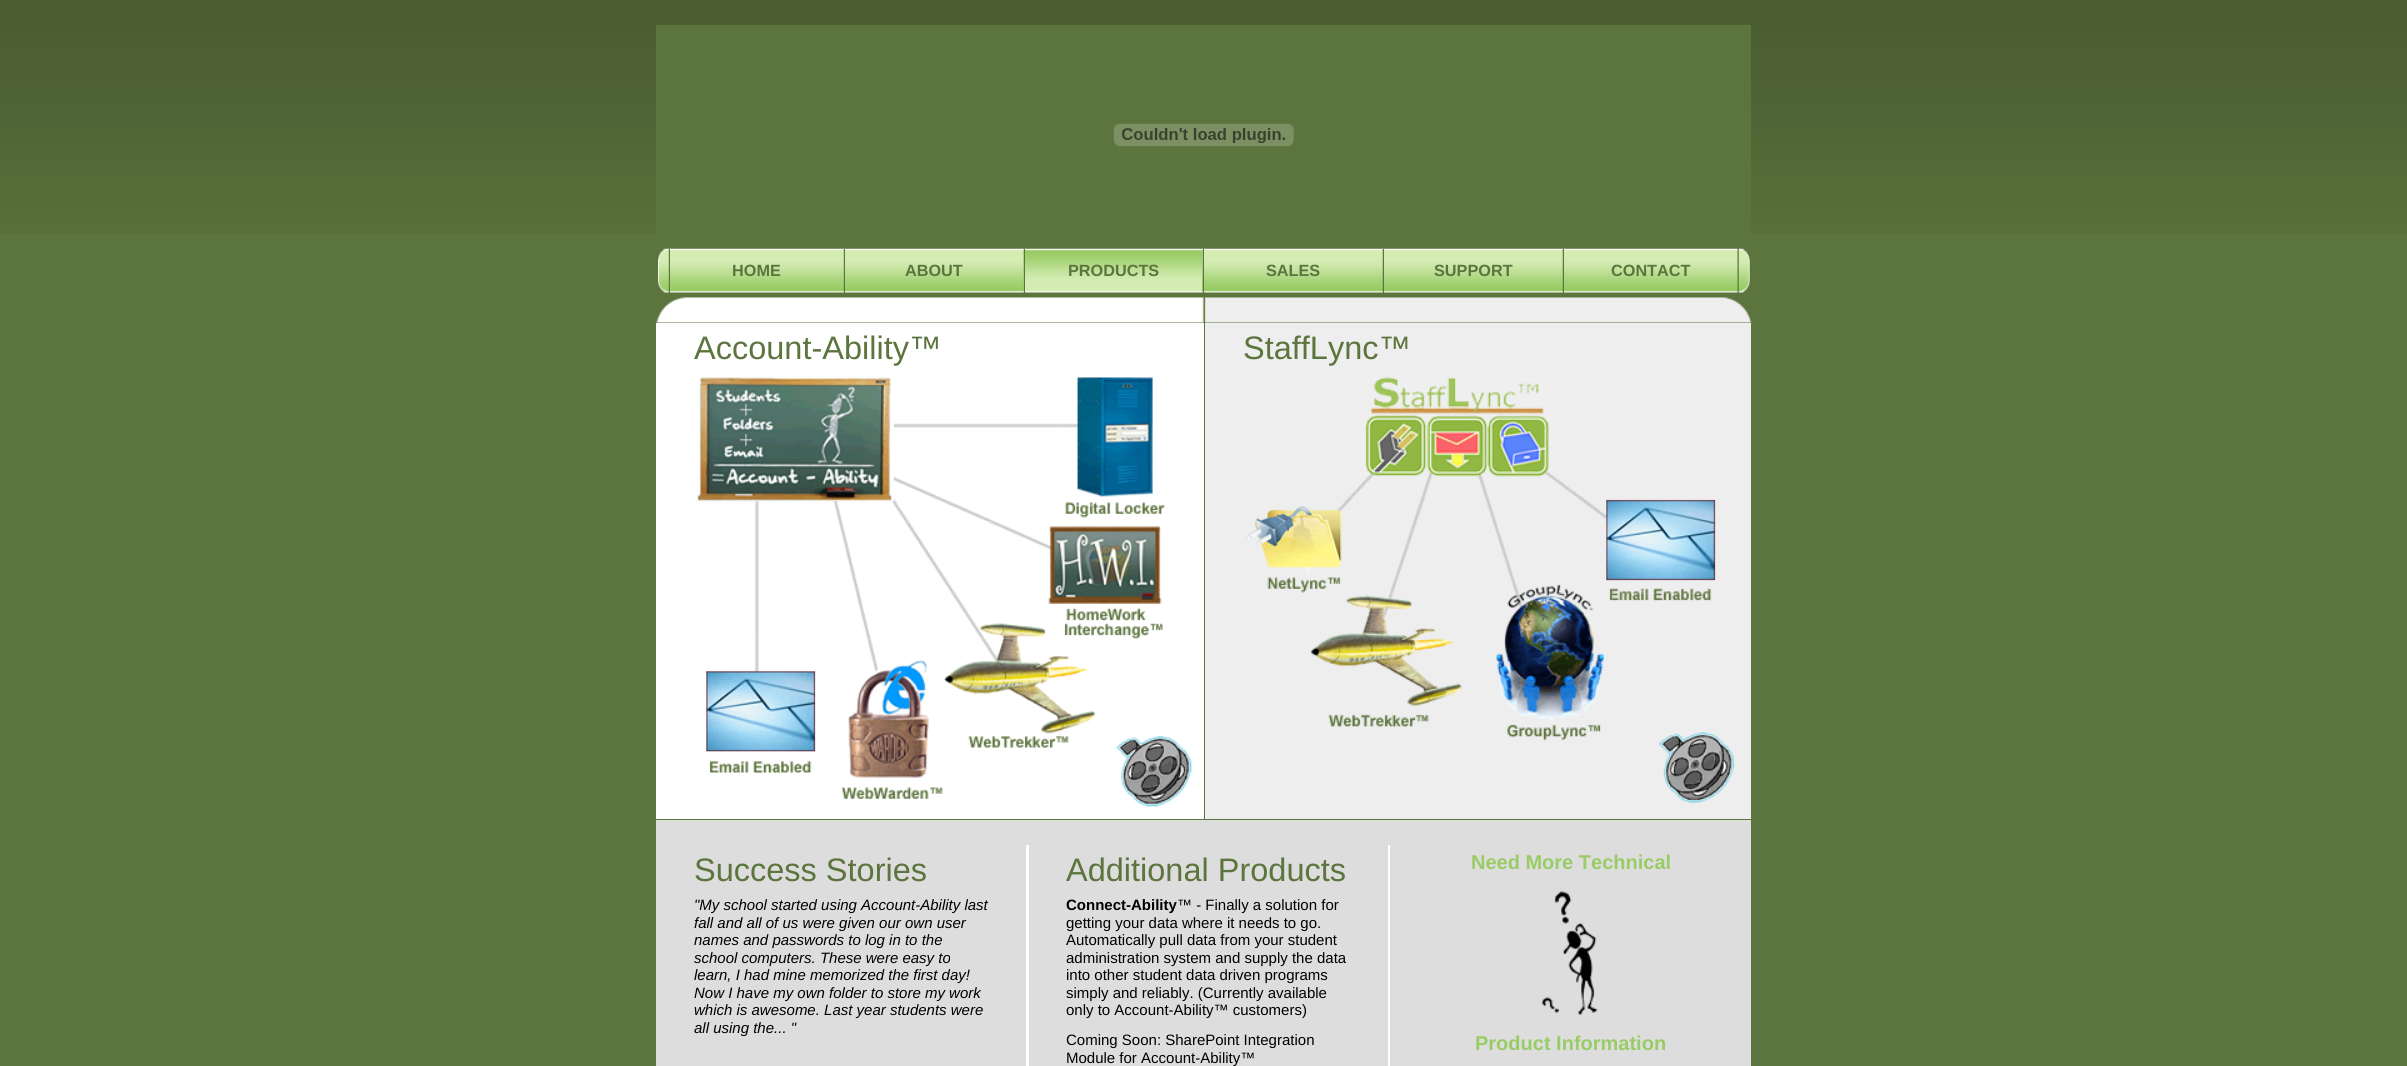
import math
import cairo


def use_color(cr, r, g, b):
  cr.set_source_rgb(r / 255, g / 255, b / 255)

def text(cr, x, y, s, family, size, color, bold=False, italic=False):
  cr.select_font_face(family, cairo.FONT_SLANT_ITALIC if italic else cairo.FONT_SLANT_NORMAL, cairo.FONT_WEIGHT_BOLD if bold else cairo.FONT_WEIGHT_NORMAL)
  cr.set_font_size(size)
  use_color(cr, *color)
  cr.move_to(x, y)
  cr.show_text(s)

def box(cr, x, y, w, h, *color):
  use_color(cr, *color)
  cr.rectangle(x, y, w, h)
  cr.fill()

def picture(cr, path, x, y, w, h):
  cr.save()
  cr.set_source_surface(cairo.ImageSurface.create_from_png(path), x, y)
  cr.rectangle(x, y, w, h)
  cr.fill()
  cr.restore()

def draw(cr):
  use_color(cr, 92, 116, 61)
  cr.paint()
  picture(cr, "img_01.png", 0, 0, 2407, 234)
  box(cr, 656, 25, 1095, 209, 92, 116, 61)
  picture(cr, "img_02.png", 1113, 123, 181, 24)
  picture(cr, "img_04.png", 668, 248, 176, 45)
  picture(cr, "img_03.png", 658, 248, 11, 45)
  box(cr, 669, 249, 1, 44, 92, 116, 61)
  picture(cr, "img_05.png", 843, 248, 181, 45)
  box(cr, 844, 249, 1, 44, 92, 116, 61)
  picture(cr, "img_06.png", 1023, 248, 180, 45)
  box(cr, 1024, 249, 1, 44, 92, 116, 61)
  picture(cr, "img_07.png", 1202, 248, 181, 45)
  box(cr, 1203, 249, 1, 44, 92, 116, 61)
  picture(cr, "img_08.png", 1382, 248, 181, 45)
  box(cr, 1383, 249, 1, 44, 92, 116, 61)
  picture(cr, "img_09.png", 1562, 248, 176, 45)
  box(cr, 1563, 249, 1, 44, 92, 116, 61)
  picture(cr, "img_10.png", 1738, 248, 12, 45)
  picture(cr, "img_11.png", 656, 297, 548, 26)
  picture(cr, "img_12.png", 1203, 297, 549, 26)
  box(cr, 656, 323, 548, 496, 255, 255, 255)
  picture(cr, "img_13.png", 697, 377, 197, 127)
  picture(cr, "img_14.png", 893, 423, 166, 99)
  picture(cr, "img_15.png", 1059, 377, 107, 141)
  picture(cr, "img_16.png", 755, 503, 139, 136)
  picture(cr, "img_17.png", 905, 521, 140, 118)
  picture(cr, "img_18.png", 1045, 526, 118, 113)
  picture(cr, "img_19.png", 841, 638, 102, 161)
  picture(cr, "img_20.png", 943, 638, 153, 110)
  cr.set_source_rgba(1, 1, 1, 0.25)
  cr.rectangle(1133, 638, 6, 1)
  cr.fill()
  picture(cr, "img_21.png", 706, 639, 110, 134)
  picture(cr, "img_22.png", 1116, 736, 76, 71)
  box(cr, 1205, 323, 546, 496, 238, 238, 238)
  picture(cr, "img_23.png", 1350, 490, 7, 7)
  picture(cr, "img_24.png", 1356, 377, 201, 120)
  picture(cr, "img_25.png", 1556, 478, 24, 19)
  picture(cr, "img_26.png", 1246, 496, 109, 97)
  picture(cr, "img_27.png", 1390, 496, 210, 98)
  picture(cr, "img_28.png", 1600, 499, 116, 95)
  picture(cr, "img_29.png", 1310, 593, 152, 134)
  picture(cr, "img_30.png", 1496, 593, 117, 137)
  picture(cr, "img_31.png", 1612, 593, 100, 8)
  picture(cr, "img_32.png", 1507, 730, 94, 11)
  picture(cr, "img_33.png", 1658, 732, 76, 71)
  box(cr, 656, 820, 1095, 25, 221, 221, 221)
  box(cr, 656, 845, 370, 221, 221, 221, 221)
  box(cr, 1026, 845, 3, 221, 255, 255, 255)
  box(cr, 1029, 845, 359, 221, 221, 221, 221)
  box(cr, 1388, 845, 2, 221, 255, 255, 255)
  box(cr, 1390, 845, 361, 221, 221, 221, 221)
  picture(cr, "img_34.png", 1542, 891, 56, 124)
  text(cr, 732, 276, "HOME", "Liberation Sans", 16.25, (92, 116, 61), bold=True)
  text(cr, 905, 276, "ABOUT", "Liberation Sans", 16.25, (92, 116, 61), bold=True)
  text(cr, 1068, 276, "PRODUCTS", "Liberation Sans", 16.25, (92, 116, 61), bold=True)
  text(cr, 1266, 276, "SALES", "Liberation Sans", 16.25, (92, 116, 61), bold=True)
  text(cr, 1434, 276, "SUPPORT", "Liberation Sans", 16.25, (92, 116, 61), bold=True)
  text(cr, 1611, 276, "CONTACT", "Liberation Sans", 16.25, (92, 116, 61), bold=True)
  text(cr, 694, 359, "Account-Ability™", "Liberation Sans", 32.5, (92, 116, 61))
  text(cr, 1243, 359, "StaffLync™", "Liberation Sans", 32.5, (92, 116, 61))
  text(cr, 694, 881, "Success Stories", "Liberation Sans", 32.5, (92, 116, 61))
  text(cr, 694, 910, "\"My school started using Account-Ability last", "Liberation Sans", 15, (0, 0, 0), italic=True)
  text(cr, 694, 928, "fall and all of us were given our own user", "Liberation Sans", 15, (0, 0, 0), italic=True)
  text(cr, 694, 945, "names and passwords to log in to the", "Liberation Sans", 15, (0, 0, 0), italic=True)
  text(cr, 694, 963, "school computers. These were easy to", "Liberation Sans", 15, (0, 0, 0), italic=True)
  text(cr, 694, 980, "learn, I had mine memorized the first day!", "Liberation Sans", 15, (0, 0, 0), italic=True)
  text(cr, 694, 998, "Now I have my own folder to store my work", "Liberation Sans", 15, (0, 0, 0), italic=True)
  text(cr, 694, 1015, "which is awesome. Last year students were", "Liberation Sans", 15, (0, 0, 0), italic=True)
  text(cr, 694, 1033, "all using the... \"", "Liberation Sans", 15, (0, 0, 0), italic=True)
  text(cr, 1066, 881, "Additional Products", "Liberation Sans", 32.5, (92, 116, 61))
  text(cr, 1066, 910, "Connect-Ability", "Liberation Sans", 15, (0, 0, 0), bold=True)
  text(cr, 1177, 910, "™ - Finally a solution for", "Liberation Sans", 15, (0, 0, 0))
  text(cr, 1066, 928, "getting your data where it needs to go.", "Liberation Sans", 15, (0, 0, 0))
  text(cr, 1066, 945, "Automatically pull data from your student", "Liberation Sans", 15, (0, 0, 0))
  text(cr, 1066, 963, "administration system and supply the data", "Liberation Sans", 15, (0, 0, 0))
  text(cr, 1066, 980, "into other student data driven programs", "Liberation Sans", 15, (0, 0, 0))
  text(cr, 1066, 998, "simply and reliably. (Currently available", "Liberation Sans", 15, (0, 0, 0))
  text(cr, 1066, 1015, "only to Account-Ability™ customers)", "Liberation Sans", 15, (0, 0, 0))
  text(cr, 1066, 1045, "Coming Soon: SharePoint Integration", "Liberation Sans", 15, (0, 0, 0))
  text(cr, 1066, 1063, "Module for Account-Ability™", "Liberation Sans", 15, (0, 0, 0))
  text(cr, 1471, 869, "Need More Technical", "Liberation Sans", 20, (153, 204, 102), bold=True)
  text(cr, 1475, 1050, "Product Information", "Liberation Sans", 20, (153, 204, 102), bold=True)


surface = cairo.ImageSurface(cairo.FORMAT_RGB24, 2407, 1066)
cr = cairo.Context(surface)
options = cairo.FontOptions()
options.set_hint_metrics(cairo.HINT_METRICS_OFF)
options.set_hint_style(cairo.HINT_STYLE_NONE)
cr.set_font_options(options)
cr.set_miter_limit(4)
draw(cr)
surface.write_to_png("out.png")
